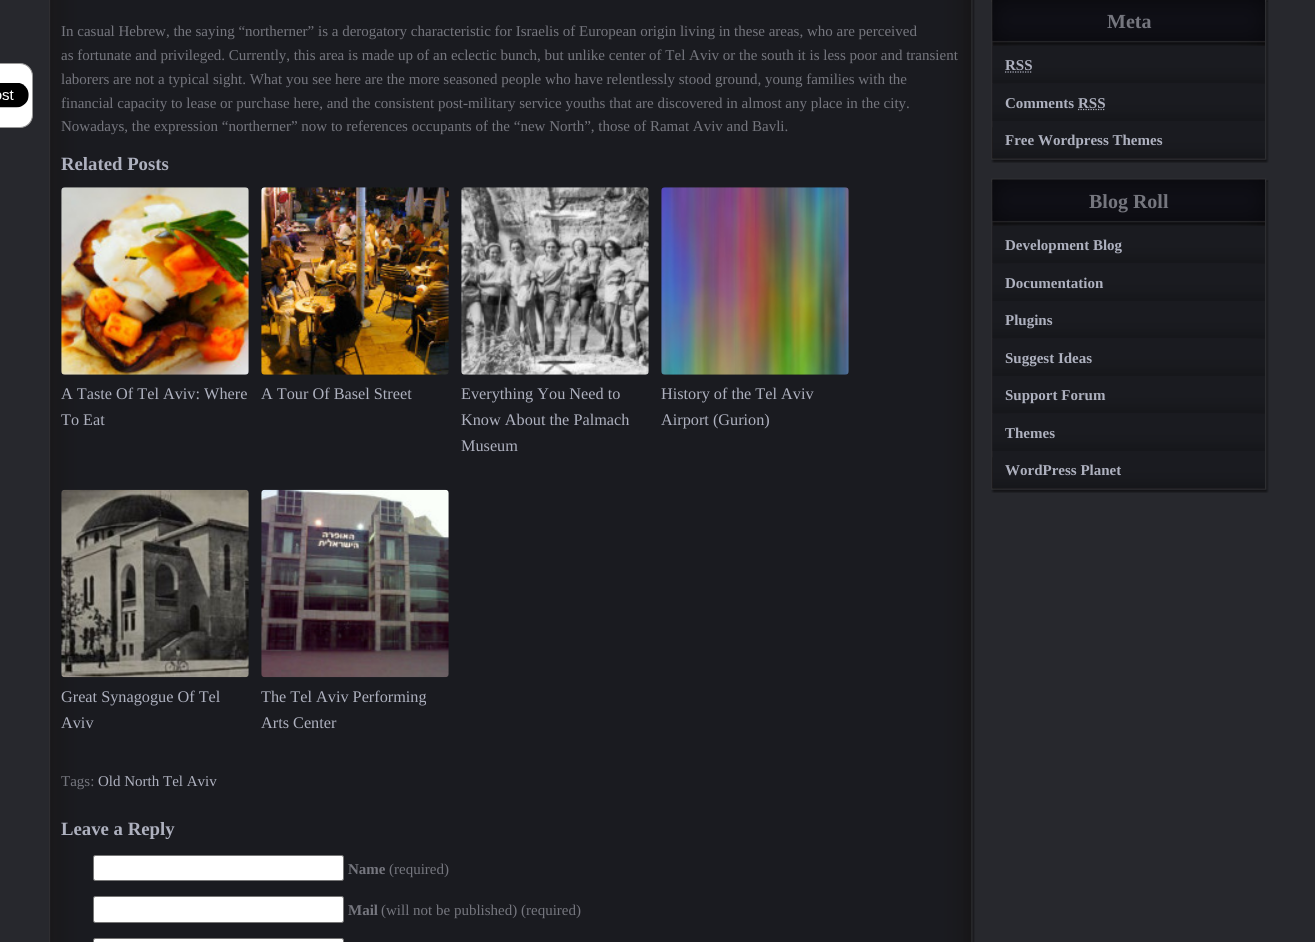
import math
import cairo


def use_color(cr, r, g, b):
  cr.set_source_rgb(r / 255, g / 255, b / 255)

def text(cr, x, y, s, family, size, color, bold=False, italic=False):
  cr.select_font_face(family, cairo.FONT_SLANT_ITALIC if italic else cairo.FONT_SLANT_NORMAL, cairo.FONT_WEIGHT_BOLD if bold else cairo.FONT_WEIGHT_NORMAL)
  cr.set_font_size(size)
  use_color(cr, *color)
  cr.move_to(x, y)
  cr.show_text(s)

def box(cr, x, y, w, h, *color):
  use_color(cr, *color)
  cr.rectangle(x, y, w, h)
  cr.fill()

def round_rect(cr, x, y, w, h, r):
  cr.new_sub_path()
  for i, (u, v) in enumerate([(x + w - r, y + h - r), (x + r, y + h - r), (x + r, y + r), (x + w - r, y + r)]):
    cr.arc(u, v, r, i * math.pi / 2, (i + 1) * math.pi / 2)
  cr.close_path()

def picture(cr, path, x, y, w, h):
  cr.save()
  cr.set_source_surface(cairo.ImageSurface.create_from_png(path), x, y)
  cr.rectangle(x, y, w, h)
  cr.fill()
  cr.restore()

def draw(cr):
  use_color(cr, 39, 40, 45)
  cr.paint()
  use_color(cr, 255, 255, 255)
  round_rect(cr, -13.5, 63.5, 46, 64, 12.5)
  cr.fill_preserve()
  use_color(cr, 153, 153, 153)
  cr.set_line_width(1)
  cr.stroke()
  picture(cr, "img_01.png", 0, 83, 29, 25)
  picture(cr, "img_02.png", 49, 0, 926, 942)
  picture(cr, "img_03.png", 61, 187, 188, 188)
  picture(cr, "img_04.png", 261, 187, 188, 188)
  picture(cr, "img_05.png", 461, 187, 188, 188)
  picture(cr, "img_06.png", 661, 187, 188, 188)
  picture(cr, "img_07.png", 61, 489, 188, 189)
  picture(cr, "img_08.png", 261, 489, 188, 189)
  use_color(cr, 255, 255, 255)
  round_rect(cr, 93.5, 855.5, 250, 25, 2)
  cr.fill_preserve()
  use_color(cr, 118, 118, 118)
  cr.stroke()
  use_color(cr, 255, 255, 255)
  round_rect(cr, 93.5, 896.5, 250, 26, 2)
  cr.fill_preserve()
  use_color(cr, 118, 118, 118)
  cr.stroke()
  use_color(cr, 255, 255, 255)
  round_rect(cr, 93.5, 938.5, 250, 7, 2)
  cr.fill_preserve()
  use_color(cr, 118, 118, 118)
  cr.stroke()
  picture(cr, "img_09.png", 991, 0, 277, 2)
  picture(cr, "img_10.png", 991, 0, 278, 159)
  picture(cr, "img_11.png", 992, 31, 273, 128)
  box(cr, 992, 0, 1, 31, 29, 28, 31)
  picture(cr, "img_12.png", 992, 127, 273, 32)
  picture(cr, "img_13.png", 992, 0, 273, 46)
  picture(cr, "img_14.png", 992, 46, 273, 37)
  cr.new_path()
  cr.move_to(1005, 72)
  cr.line_to(1032.5, 72)
  use_color(cr, 174, 177, 191)
  cr.set_line_width(1.2)
  cr.set_dash([1.25, 1.25])
  cr.stroke()
  picture(cr, "img_15.png", 992, 83, 273, 38)
  cr.new_path()
  cr.move_to(1078, 109.5)
  cr.line_to(1105.5, 109.5)
  cr.stroke()
  picture(cr, "img_16.png", 993, 121, 272, 37)
  picture(cr, "img_17.png", 991, 158, 278, 5)
  picture(cr, "img_18.png", 991, 178, 277, 4)
  picture(cr, "img_19.png", 991, 180, 278, 309)
  picture(cr, "img_20.png", 992, 179, 273, 310)
  picture(cr, "img_21.png", 992, 179, 273, 32)
  picture(cr, "img_12.png", 992, 457, 273, 32)
  picture(cr, "img_22.png", 992, 179, 273, 47)
  picture(cr, "img_14.png", 992, 226, 273, 37)
  picture(cr, "img_15.png", 992, 263, 273, 38)
  picture(cr, "img_14.png", 992, 301, 273, 37)
  picture(cr, "img_15.png", 992, 338, 273, 38)
  picture(cr, "img_14.png", 992, 376, 273, 37)
  picture(cr, "img_15.png", 992, 413, 273, 38)
  picture(cr, "img_16.png", 993, 451, 272, 37)
  picture(cr, "img_17.png", 991, 488, 278, 5)
  text(cr, 61, 36, "In casual Hebrew, the saying “northerner” is a derogatory characteristic for Israelis of European origin living in these areas, who are perceived", "Liberation Serif", 15, (117, 118, 126))
  text(cr, 61, 60, "as fortunate and privileged. Currently, this area is made up of an eclectic bunch, but unlike center of Tel Aviv or the south it is less poor and transient", "Liberation Serif", 15, (117, 118, 126))
  text(cr, 61, 84, "laborers are not a typical sight. What you see here are the more seasoned people who have relentlessly stood ground, young families with the", "Liberation Serif", 15, (117, 118, 126))
  text(cr, 61, 108, "financial capacity to lease or purchase here, and the consistent post-military service youths that are discovered in almost any place in the city.", "Liberation Serif", 15, (117, 118, 126))
  text(cr, 61, 131, "Nowadays, the expression “northerner” now to references occupants of the “new North”, those of Ramat Aviv and Bavli.", "Liberation Serif", 15, (117, 118, 126))
  text(cr, 61, 170, "Related Posts", "Liberation Serif", 18.75, (174, 177, 191), bold=True)
  text(cr, 61, 399, "A Taste Of Tel Aviv: Where", "Liberation Serif", 16.25, (174, 177, 191))
  text(cr, 61, 425, "To Eat", "Liberation Serif", 16.25, (174, 177, 191))
  text(cr, 261, 399, "A Tour Of Basel Street", "Liberation Serif", 16.25, (174, 177, 191))
  text(cr, 461, 399, "Everything You Need to", "Liberation Serif", 16.25, (174, 177, 191))
  text(cr, 461, 425, "Know About the Palmach", "Liberation Serif", 16.25, (174, 177, 191))
  text(cr, 461, 451, "Museum", "Liberation Serif", 16.25, (174, 177, 191))
  text(cr, 661, 399, "History of the Tel Aviv", "Liberation Serif", 16.25, (174, 177, 191))
  text(cr, 661, 425, "Airport (Gurion)", "Liberation Serif", 16.25, (174, 177, 191))
  text(cr, 61, 702, "Great Synagogue Of Tel", "Liberation Serif", 16.25, (174, 177, 191))
  text(cr, 61, 728, "Aviv", "Liberation Serif", 16.25, (174, 177, 191))
  text(cr, 261, 702, "The Tel Aviv Performing", "Liberation Serif", 16.25, (174, 177, 191))
  text(cr, 261, 728, "Arts Center", "Liberation Serif", 16.25, (174, 177, 191))
  text(cr, 61, 786, "Tags:", "Liberation Serif", 15, (117, 118, 126))
  text(cr, 98, 786, "Old North Tel Aviv", "Liberation Serif", 15, (174, 177, 191))
  text(cr, 61, 835, "Leave a Reply", "Liberation Serif", 18.75, (174, 177, 191), bold=True)
  text(cr, 348, 874, "Name", "Liberation Serif", 15, (117, 118, 126), bold=True)
  text(cr, 389, 874, "(required)", "Liberation Serif", 15, (117, 118, 126))
  text(cr, 348, 915, "Mail", "Liberation Serif", 15, (117, 118, 126), bold=True)
  text(cr, 381, 915, "(will not be published) (required)", "Liberation Serif", 15, (117, 118, 126))
  text(cr, 1107, 28, "Meta", "Liberation Serif", 20, (117, 118, 126), bold=True)
  text(cr, 1005, 70, "RSS", "Liberation Serif", 15, (174, 177, 191), bold=True)
  text(cr, 1005, 108, "Comments", "Liberation Serif", 15, (174, 177, 191), bold=True)
  text(cr, 1078, 108, "RSS", "Liberation Serif", 15, (174, 177, 191), bold=True)
  text(cr, 1005, 145, "Free Wordpress Themes", "Liberation Serif", 15, (174, 177, 191), bold=True)
  text(cr, 1089, 208, "Blog Roll", "Liberation Serif", 20, (117, 118, 126), bold=True)
  text(cr, 1005, 250, "Development Blog", "Liberation Serif", 15, (174, 177, 191), bold=True)
  text(cr, 1005, 288, "Documentation", "Liberation Serif", 15, (174, 177, 191), bold=True)
  text(cr, 1005, 325, "Plugins", "Liberation Serif", 15, (174, 177, 191), bold=True)
  text(cr, 1005, 363, "Suggest Ideas", "Liberation Serif", 15, (174, 177, 191), bold=True)
  text(cr, 1005, 400, "Support Forum", "Liberation Serif", 15, (174, 177, 191), bold=True)
  text(cr, 1005, 438, "Themes", "Liberation Serif", 15, (174, 177, 191), bold=True)
  text(cr, 1005, 475, "WordPress Planet", "Liberation Serif", 15, (174, 177, 191), bold=True)


surface = cairo.ImageSurface(cairo.FORMAT_RGB24, 1315, 942)
cr = cairo.Context(surface)
options = cairo.FontOptions()
options.set_hint_metrics(cairo.HINT_METRICS_OFF)
options.set_hint_style(cairo.HINT_STYLE_NONE)
cr.set_font_options(options)
cr.set_miter_limit(4)
draw(cr)
surface.write_to_png("out.png")
